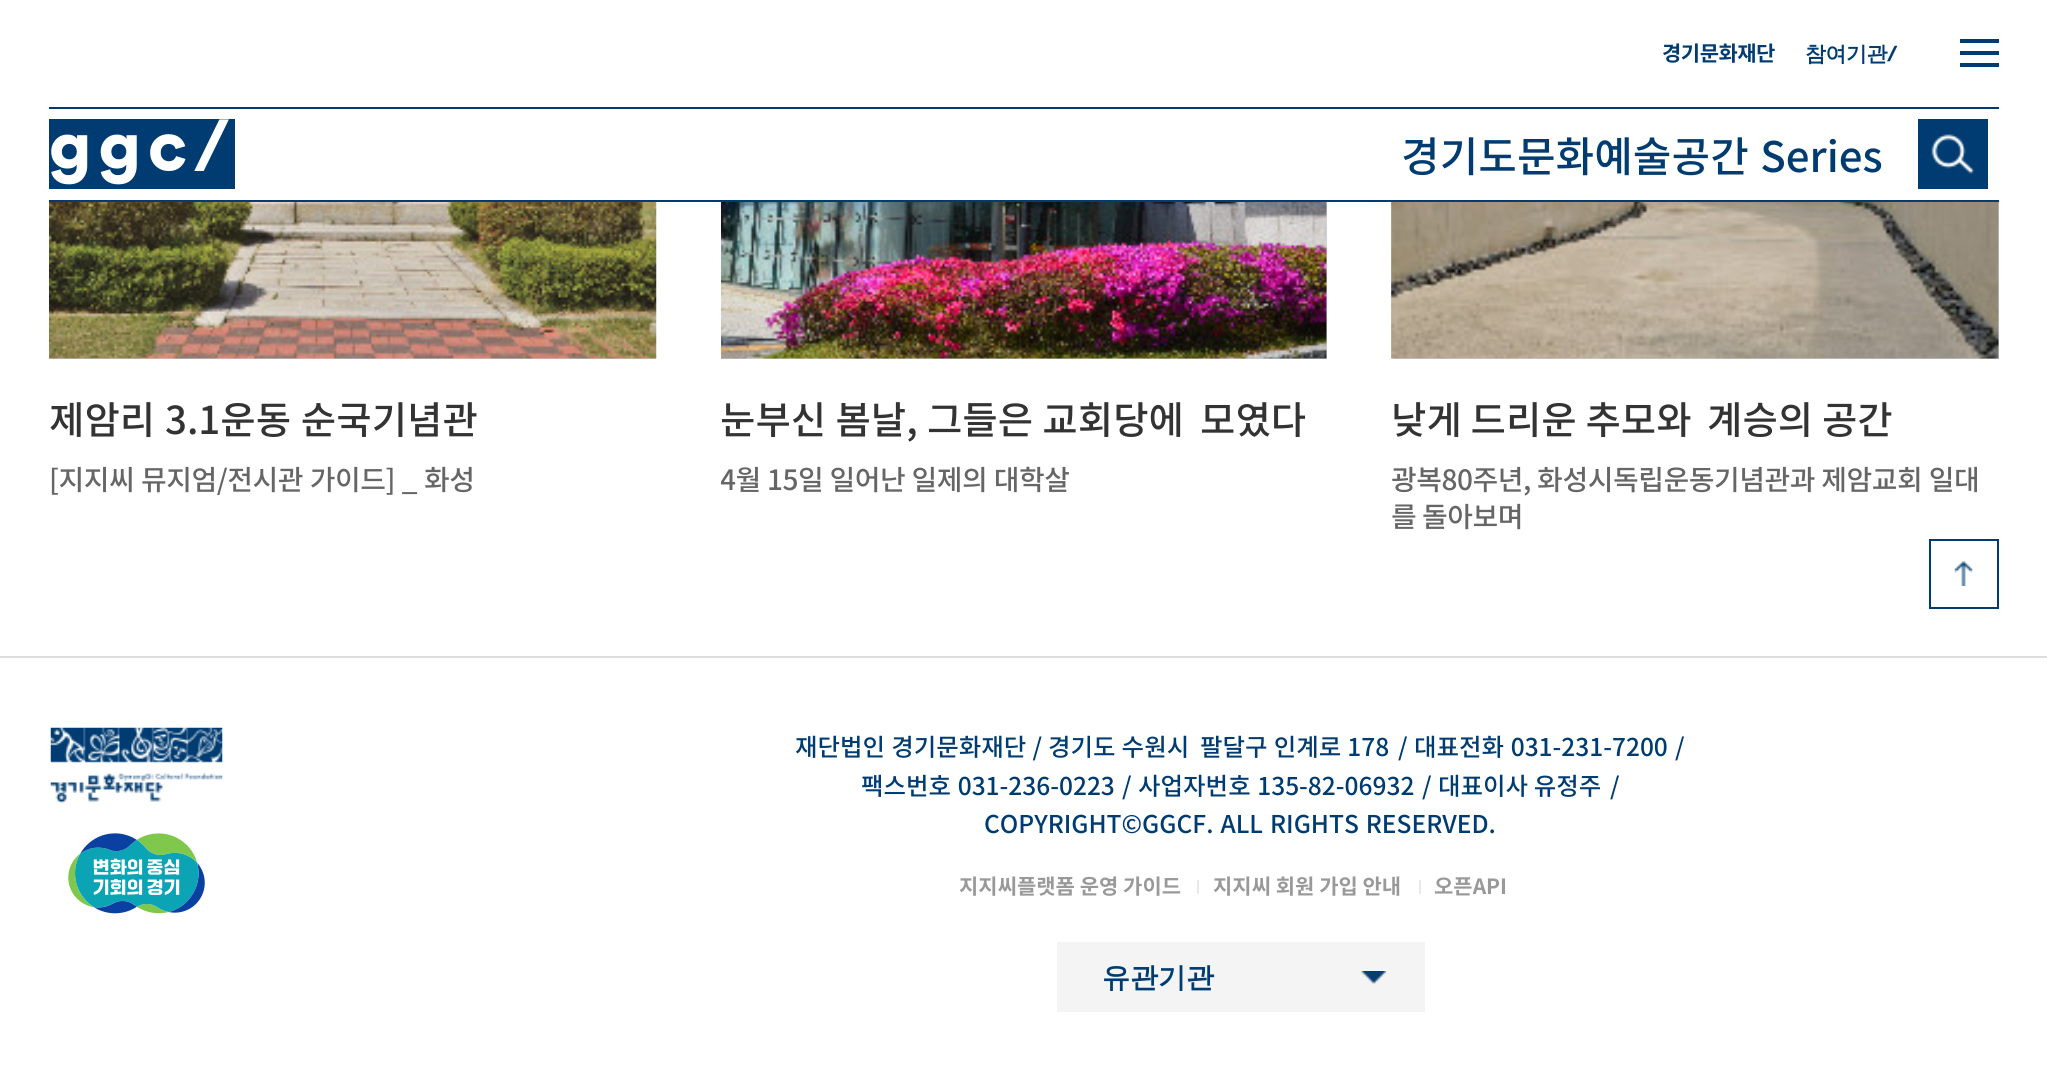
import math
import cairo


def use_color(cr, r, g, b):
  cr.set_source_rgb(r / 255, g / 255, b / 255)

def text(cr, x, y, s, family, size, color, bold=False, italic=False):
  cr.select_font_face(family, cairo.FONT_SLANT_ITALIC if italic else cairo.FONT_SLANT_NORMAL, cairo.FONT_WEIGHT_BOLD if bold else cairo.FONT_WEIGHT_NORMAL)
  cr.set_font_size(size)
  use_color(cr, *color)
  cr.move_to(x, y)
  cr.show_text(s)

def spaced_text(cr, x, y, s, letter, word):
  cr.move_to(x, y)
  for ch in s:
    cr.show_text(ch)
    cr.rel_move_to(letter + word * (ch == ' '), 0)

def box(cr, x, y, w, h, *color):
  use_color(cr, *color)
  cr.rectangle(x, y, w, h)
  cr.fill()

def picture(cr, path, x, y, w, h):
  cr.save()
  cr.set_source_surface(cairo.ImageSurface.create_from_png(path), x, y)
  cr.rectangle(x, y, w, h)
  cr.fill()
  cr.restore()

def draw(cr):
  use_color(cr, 255, 255, 255)
  cr.paint()
  box(cr, 1960, 39, 39, 4, 0, 60, 113)
  box(cr, 1960, 51, 39, 4, 0, 60, 113)
  box(cr, 1960, 63, 39, 4, 0, 60, 113)
  box(cr, 49, 107, 1950, 2, 0, 60, 113)
  box(cr, 49, 200, 1950, 2, 0, 60, 113)
  box(cr, 49, 119, 186, 70, 0, 60, 113)
  box(cr, 1918, 119, 70, 70, 0, 60, 113)
  picture(cr, "img_01.png", 1931, 134, 44, 40)
  box(cr, 49, 358, 607, 1, 211, 211, 211)
  picture(cr, "img_02.png", 49, 202, 608, 157)
  box(cr, 721, 202, 606, 157, 211, 211, 211)
  picture(cr, "img_03.png", 721, 202, 606, 157)
  box(cr, 1391, 202, 608, 157, 211, 211, 211)
  picture(cr, "img_04.png", 1391, 202, 608, 157)
  box(cr, 0, 656, 2047, 2, 221, 221, 221)
  picture(cr, "img_05.png", 1954, 561, 19, 25)
  cr.rectangle(1930, 540, 68, 68)
  use_color(cr, 0, 60, 113)
  cr.stroke()
  picture(cr, "img_06.png", 50, 727, 173, 76)
  picture(cr, "img_07.png", 68, 833, 137, 81)
  box(cr, 1197, 880, 2, 14, 232, 232, 232)
  box(cr, 1419, 880, 2, 14, 232, 232, 232)
  box(cr, 1057, 942, 368, 70, 244, 244, 244)
  picture(cr, "img_08.png", 1361, 971, 25, 13)
  cr.select_font_face("Noto Sans KR", cairo.FONT_SLANT_NORMAL, cairo.FONT_WEIGHT_BOLD)
  cr.set_font_size(21)
  use_color(cr, 0, 60, 113)
  spaced_text(cr, 1662, 61, "경기문화재단", -0.5, 0)
  cr.select_font_face("WenQuanYi Zen Hei", cairo.FONT_SLANT_NORMAL, cairo.FONT_WEIGHT_BOLD)
  spaced_text(cr, 1805, 61, "참여기관", -0.5, 0)
  cr.select_font_face("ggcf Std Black")
  spaced_text(cr, 1887, 61, "/", -0.5, 0)
  cr.set_font_size(70)
  use_color(cr, 255, 255, 255)
  spaced_text(cr, 49, 170, "ggc/", 7, 0)
  cr.select_font_face("Noto Sans KR Medium")
  cr.set_font_size(42)
  use_color(cr, 0, 60, 113)
  spaced_text(cr, 1401, 172, "경기도문화예술공간 Series", 0, 2)
  cr.set_font_size(38.5)
  use_color(cr, 51, 51, 51)
  spaced_text(cr, 49, 434, "제암리 3.1운동 순국기념관", 0, 1)
  cr.set_font_size(28)
  use_color(cr, 102, 102, 102)
  spaced_text(cr, 49, 490, "[지지씨 뮤지엄/전시관 가이드] _ 화성", -0.5, 1)
  cr.set_font_size(38.5)
  use_color(cr, 51, 51, 51)
  spaced_text(cr, 720, 434, "눈부신 봄날, 그들은 교회당에", 0, 0.5)
  spaced_text(cr, 1200, 434, "모였다", 0, 0.5)
  cr.save()
  cr.rectangle(721, 460, 606, 37)
  cr.clip()
  cr.set_font_size(28)
  use_color(cr, 102, 102, 102)
  spaced_text(cr, 720, 490, "4월 15일 일어난 일제의 대학살", -0.5, 0.5)
  cr.restore()
  text(cr, 1391, 434, "낮게 드리운 추모와", "Noto Sans KR Medium", 38.5, (51, 51, 51))
  text(cr, 1707, 434, "계승의 공간", "Noto Sans KR Medium", 38.5, (51, 51, 51))
  cr.set_font_size(28)
  use_color(cr, 102, 102, 102)
  spaced_text(cr, 1391, 490, "광복80주년, 화성시독립운동기념관과 제암교회 일대", -0.5, 0.5)
  spaced_text(cr, 1391, 527, "를 돌아보며", -0.5, 0)
  cr.set_font_size(24.5)
  use_color(cr, 0, 60, 113)
  spaced_text(cr, 795, 756, "재단법인 경기문화재단 / 경기도 수원시", 0, 0.5)
  spaced_text(cr, 1200, 756, "팔달구 인계로 178", 0, 0.5)
  text(cr, 1398, 756, "/", "Noto Sans KR Medium", 24.5, (0, 60, 113))
  spaced_text(cr, 1414, 756, "대표전화 031-231-7200", 0, 1)
  text(cr, 1675, 756, "/", "Noto Sans KR Medium", 24.5, (0, 60, 113))
  spaced_text(cr, 861, 795, "팩스번호 031-236-0223", 0, 1)
  text(cr, 1122, 795, "/", "Noto Sans KR Medium", 24.5, (0, 60, 113))
  spaced_text(cr, 1138, 795, "사업자번호 135-82-06932", 0, 1)
  text(cr, 1422, 795, "/", "Noto Sans KR Medium", 24.5, (0, 60, 113))
  text(cr, 1438, 795, "대표이사 유정주", "Noto Sans KR Medium", 24.5, (0, 60, 113))
  text(cr, 1610, 795, "/", "Noto Sans KR Medium", 24.5, (0, 60, 113))
  spaced_text(cr, 984, 833, "COPYRIGHT©GGCF. ALL RIGHTS RESERVED.", 0, 1.5)
  text(cr, 959, 894, "지지씨플랫폼 운영 가이드", "Noto Sans KR", 21, (153, 153, 153), bold=True)
  text(cr, 1213, 894, "지지씨 회원 가입 안내", "Noto Sans KR", 21, (153, 153, 153), bold=True)
  text(cr, 1434, 894, "오픈API", "Noto Sans KR", 21, (153, 153, 153), bold=True)
  text(cr, 1102, 987, "유관기관", "WenQuanYi Zen Hei", 28, (0, 60, 113), bold=True)


surface = cairo.ImageSurface(cairo.FORMAT_RGB24, 2047, 1080)
cr = cairo.Context(surface)
options = cairo.FontOptions()
options.set_hint_metrics(cairo.HINT_METRICS_OFF)
options.set_hint_style(cairo.HINT_STYLE_NONE)
cr.set_font_options(options)
cr.set_miter_limit(4)
draw(cr)
surface.write_to_png("out.png")
